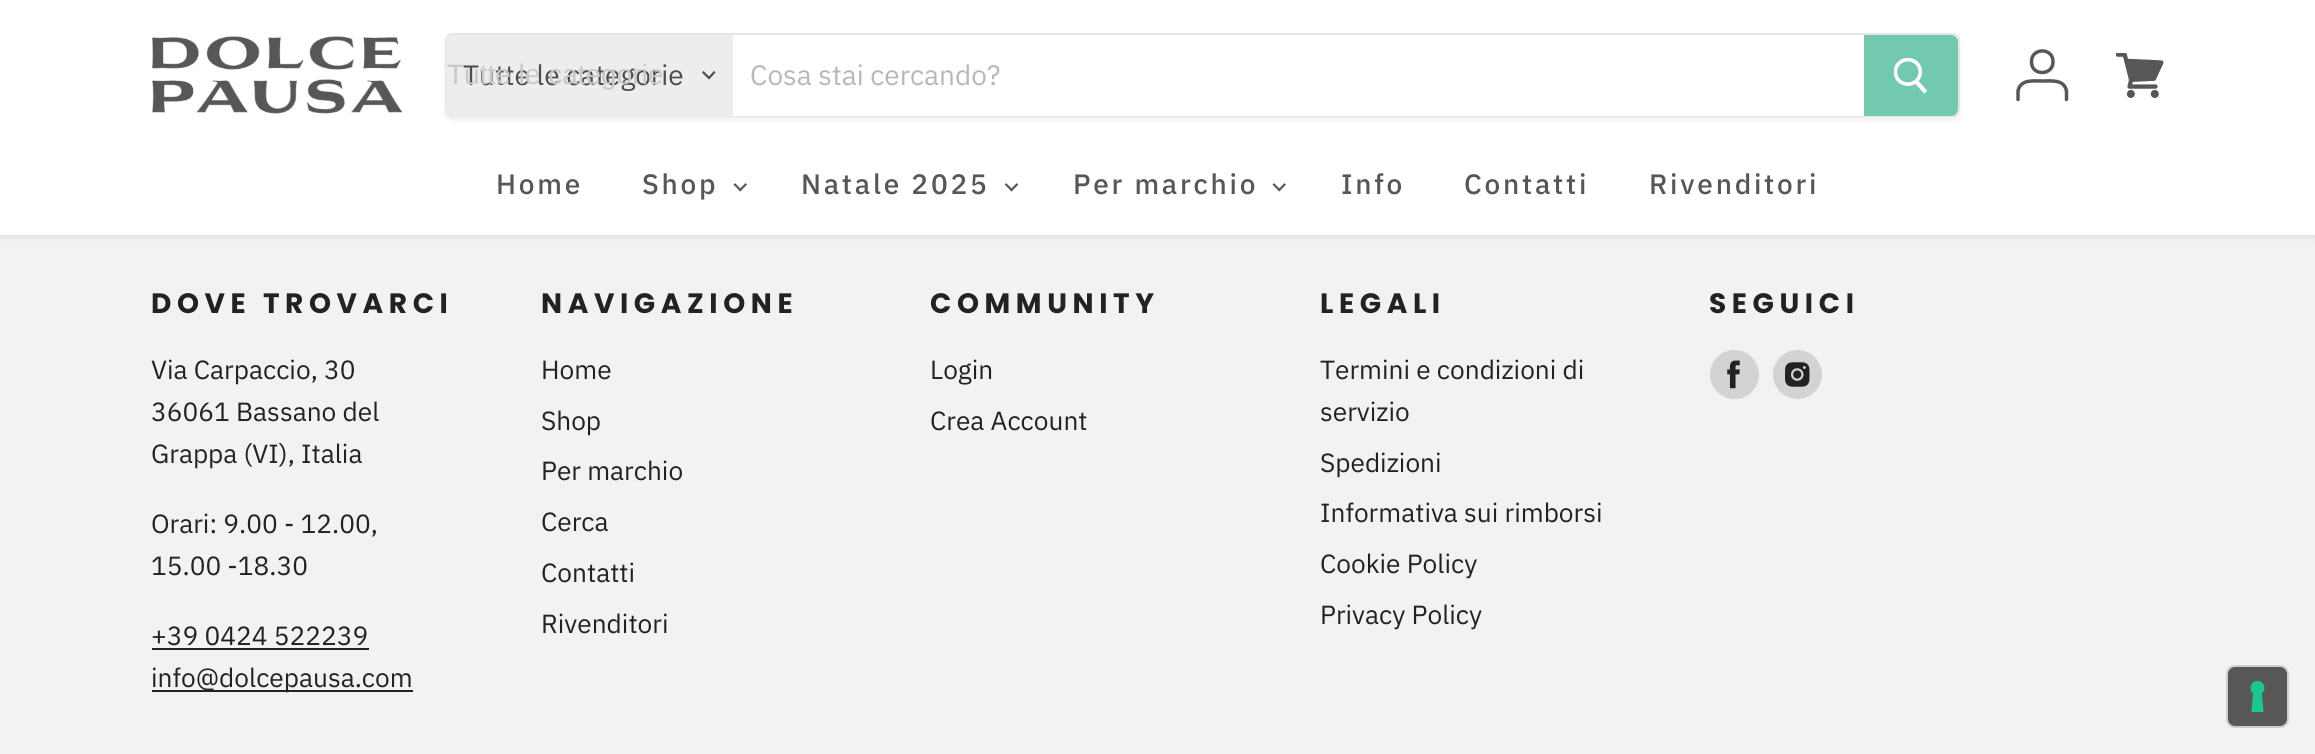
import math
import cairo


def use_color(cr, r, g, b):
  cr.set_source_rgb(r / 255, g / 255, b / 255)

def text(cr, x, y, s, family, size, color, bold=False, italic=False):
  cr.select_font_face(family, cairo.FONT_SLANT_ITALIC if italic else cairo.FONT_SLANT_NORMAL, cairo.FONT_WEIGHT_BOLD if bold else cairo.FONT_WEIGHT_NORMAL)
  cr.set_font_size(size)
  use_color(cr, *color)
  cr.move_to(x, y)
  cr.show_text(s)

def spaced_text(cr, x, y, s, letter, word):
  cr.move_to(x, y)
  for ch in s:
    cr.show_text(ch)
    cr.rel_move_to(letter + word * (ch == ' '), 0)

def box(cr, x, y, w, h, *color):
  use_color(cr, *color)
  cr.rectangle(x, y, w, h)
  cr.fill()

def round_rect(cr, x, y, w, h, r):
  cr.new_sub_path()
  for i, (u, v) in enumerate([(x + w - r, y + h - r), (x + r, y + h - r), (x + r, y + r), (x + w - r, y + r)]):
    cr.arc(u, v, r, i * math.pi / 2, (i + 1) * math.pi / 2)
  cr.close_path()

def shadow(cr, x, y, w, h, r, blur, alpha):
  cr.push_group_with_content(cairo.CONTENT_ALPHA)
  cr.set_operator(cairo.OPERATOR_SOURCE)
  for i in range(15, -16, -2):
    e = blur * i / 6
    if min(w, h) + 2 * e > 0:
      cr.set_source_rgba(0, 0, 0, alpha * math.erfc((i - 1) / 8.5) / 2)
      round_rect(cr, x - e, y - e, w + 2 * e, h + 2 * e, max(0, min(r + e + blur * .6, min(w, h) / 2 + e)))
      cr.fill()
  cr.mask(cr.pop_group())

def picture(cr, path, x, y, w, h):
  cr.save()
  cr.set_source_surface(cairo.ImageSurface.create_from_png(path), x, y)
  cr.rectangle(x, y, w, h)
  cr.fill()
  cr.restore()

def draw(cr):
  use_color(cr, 242, 242, 242)
  cr.paint()
  use_color(cr, 128, 128, 128)
  shadow(cr, 0, 2, 2315, 234, 0, 3.5, 0.25)
  box(cr, 0, 0, 2315, 235, 255, 255, 255)
  picture(cr, "img_01.png", 152, 36, 251, 78)
  cr.save()
  cr.set_fill_rule(cairo.FILL_RULE_EVEN_ODD)
  cr.new_path()
  cr.move_to(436, 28)
  cr.line_to(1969, 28)
  cr.line_to(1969, 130)
  cr.line_to(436, 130)
  cr.close_path()
  cr.move_to(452, 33)
  cr.line_to(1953, 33)
  cr.curve_to(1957, 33, 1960, 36, 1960, 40)
  cr.line_to(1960, 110)
  cr.curve_to(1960, 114, 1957, 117, 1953, 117)
  cr.line_to(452, 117)
  cr.curve_to(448, 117, 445, 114, 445, 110)
  cr.line_to(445, 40)
  cr.curve_to(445, 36, 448, 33, 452, 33)
  cr.close_path()
  cr.clip()
  use_color(cr, 128, 128, 128)
  shadow(cr, 445, 37, 1515, 84, 7, 2.5, 0.11)
  cr.restore()
  round_rect(cr, 446, 34, 1513, 82, 6)
  cr.set_source_rgba(0.502, 0.502, 0.502, 0.2)
  cr.stroke()
  use_color(cr, 237, 237, 237)
  cr.new_path()
  cr.move_to(451, 35)
  cr.line_to(733, 35)
  cr.line_to(733, 116)
  cr.line_to(451, 116)
  cr.curve_to(448, 116, 446, 114, 446, 111)
  cr.line_to(446, 40)
  cr.curve_to(446, 37, 448, 35, 451, 35)
  cr.close_path()
  cr.fill()
  cr.new_path()
  cr.move_to(709, 78)
  cr.line_to(714, 72.5)
  cr.move_to(709, 78)
  cr.line_to(703.5, 72.5)
  use_color(cr, 77, 77, 77)
  cr.set_line_width(2.2)
  cr.set_line_cap(cairo.LINE_CAP_SQUARE)
  cr.stroke()
  box(cr, 733, 115, 1131, 1, 255, 255, 255)
  use_color(cr, 115, 201, 175)
  cr.new_path()
  cr.move_to(1865, 36)
  cr.line_to(1951, 36)
  cr.curve_to(1954.5, 36, 1957, 38.5, 1957, 42)
  cr.line_to(1957, 109)
  cr.curve_to(1957, 112.5, 1954.5, 115, 1951, 115)
  cr.line_to(1865, 115)
  cr.close_path()
  cr.fill_preserve()
  cr.set_line_width(2)
  cr.set_line_cap(cairo.LINE_CAP_BUTT)
  cr.stroke()
  picture(cr, "img_02.png", 1894, 58, 34, 36)
  cr.new_path()
  cr.move_to(2066.5, 99.5)
  cr.line_to(2066.5, 91)
  cr.curve_to(2064, 79, 2051.5, 81, 2042, 81)
  cr.curve_to(2033, 81, 2020.5, 79, 2018, 91)
  cr.line_to(2018, 99.5)
  cr.move_to(2053, 61.5)
  cr.curve_to(2053.5, 75.5, 2032, 76.5, 2031.5, 62.5)
  cr.curve_to(2030.5, 47.5, 2053, 47, 2053, 61.5)
  cr.close_path()
  use_color(cr, 87, 87, 86)
  cr.set_line_width(3.5)
  cr.set_line_cap(cairo.LINE_CAP_ROUND)
  cr.set_line_join(cairo.LINE_JOIN_ROUND)
  cr.stroke()
  picture(cr, "img_03.png", 2116, 53, 48, 45)
  picture(cr, "img_04.png", 733, 183, 14, 9)
  picture(cr, "img_05.png", 1005, 183, 14, 9)
  picture(cr, "img_04.png", 1272, 183, 14, 9)
  box(cr, 152, 648, 217, 2, 34, 34, 34)
  box(cr, 152, 690, 261, 2, 34, 34, 34)
  use_color(cr, 211, 211, 211)
  cr.arc(1734.5, 374.5, 24.5, 0, 2 * math.pi)
  cr.fill()
  picture(cr, "img_06.png", 1727, 360, 13, 29)
  cr.arc(1797.5, 374.5, 24.5, 0, 2 * math.pi)
  cr.fill()
  picture(cr, "img_07.png", 1785, 362, 25, 25)
  round_rect(cr, 2227, 666, 61, 61, 8)
  use_color(cr, 206, 206, 206)
  cr.set_line_width(2)
  cr.set_line_cap(cairo.LINE_CAP_BUTT)
  cr.set_line_join(cairo.LINE_JOIN_MITER)
  cr.stroke()
  use_color(cr, 87, 87, 86)
  round_rect(cr, 2228, 667, 59, 59, 7)
  cr.fill()
  use_color(cr, 28, 198, 145)
  cr.set_fill_rule(cairo.FILL_RULE_EVEN_ODD)
  cr.new_path()
  cr.move_to(2257.5, 681)
  cr.curve_to(2264, 681, 2267, 689, 2262, 693)
  cr.line_to(2263.5, 712)
  cr.line_to(2251.5, 712)
  cr.line_to(2253, 693)
  cr.curve_to(2248, 689, 2251, 681, 2257.5, 681)
  cr.close_path()
  cr.fill()
  text(cr, 463, 85, "Tutte le categorie", "IBM Plex Sans", 28, (77, 77, 77))
  text(cr, 447, 84, "Tutte le categorie", "Liberation Sans", 28, (201, 201, 201))
  text(cr, 750, 85, "Cosa stai cercando?", "IBM Plex Sans", 28, (184, 184, 184))
  cr.select_font_face("IBM Plex Sans Medium")
  use_color(cr, 87, 87, 86)
  spaced_text(cr, 496, 194, "Home", 2.75, 0)
  spaced_text(cr, 642, 194, "Shop", 2.75, 0)
  spaced_text(cr, 801, 194, "Natale 2025", 2.75, 0)
  spaced_text(cr, 1073, 194, "Per marchio", 2.75, 0)
  spaced_text(cr, 1341, 194, "Info", 2.75, 0)
  spaced_text(cr, 1464, 194, "Contatti", 2.75, 0)
  spaced_text(cr, 1649, 194, "Rivenditori", 2.75, 0)
  cr.select_font_face("Poppins", cairo.FONT_SLANT_NORMAL, cairo.FONT_WEIGHT_BOLD)
  use_color(cr, 34, 34, 34)
  spaced_text(cr, 151, 313, "DOVE TROVARCI", 5.6, 0)
  text(cr, 151, 379, "Via Carpaccio, 30", "IBM Plex Sans", 26.25, (34, 34, 34))
  text(cr, 151, 421, "36061 Bassano del", "IBM Plex Sans", 26.25, (34, 34, 34))
  text(cr, 151, 463, "Grappa (VI), Italia", "IBM Plex Sans", 26.25, (34, 34, 34))
  text(cr, 151, 533, "Orari: 9.00 - 12.00,", "IBM Plex Sans", 26.25, (34, 34, 34))
  text(cr, 151, 575, "15.00 -18.30", "IBM Plex Sans", 26.25, (34, 34, 34))
  text(cr, 151, 645, "+39 0424 522239", "IBM Plex Sans", 26.25, (34, 34, 34))
  text(cr, 151, 687, "info@dolcepausa.com", "IBM Plex Sans", 26.25, (34, 34, 34))
  cr.select_font_face("Poppins", cairo.FONT_SLANT_NORMAL, cairo.FONT_WEIGHT_BOLD)
  cr.set_font_size(28)
  spaced_text(cr, 541, 313, "NAVIGAZIONE", 5.6, 0)
  text(cr, 541, 379, "Home", "IBM Plex Sans", 26.25, (34, 34, 34))
  text(cr, 541, 430, "Shop", "IBM Plex Sans", 26.25, (34, 34, 34))
  text(cr, 541, 480, "Per marchio", "IBM Plex Sans", 26.25, (34, 34, 34))
  text(cr, 541, 531, "Cerca", "IBM Plex Sans", 26.25, (34, 34, 34))
  text(cr, 541, 582, "Contatti", "IBM Plex Sans", 26.25, (34, 34, 34))
  text(cr, 541, 633, "Rivenditori", "IBM Plex Sans", 26.25, (34, 34, 34))
  cr.select_font_face("Poppins", cairo.FONT_SLANT_NORMAL, cairo.FONT_WEIGHT_BOLD)
  cr.set_font_size(28)
  spaced_text(cr, 930, 313, "COMMUNITY", 5.6, 0)
  text(cr, 930, 379, "Login", "IBM Plex Sans", 26.25, (34, 34, 34))
  text(cr, 930, 430, "Crea Account", "IBM Plex Sans", 26.25, (34, 34, 34))
  cr.select_font_face("Poppins", cairo.FONT_SLANT_NORMAL, cairo.FONT_WEIGHT_BOLD)
  cr.set_font_size(28)
  spaced_text(cr, 1320, 313, "LEGALI", 5.6, 0)
  text(cr, 1320, 379, "Termini e condizioni di", "IBM Plex Sans", 26.25, (34, 34, 34))
  text(cr, 1320, 421, "servizio", "IBM Plex Sans", 26.25, (34, 34, 34))
  text(cr, 1320, 472, "Spedizioni", "IBM Plex Sans", 26.25, (34, 34, 34))
  text(cr, 1320, 522, "Informativa sui rimborsi", "IBM Plex Sans", 26.25, (34, 34, 34))
  text(cr, 1320, 573, "Cookie Policy", "IBM Plex Sans", 26.25, (34, 34, 34))
  text(cr, 1320, 624, "Privacy Policy", "IBM Plex Sans", 26.25, (34, 34, 34))
  cr.select_font_face("Poppins", cairo.FONT_SLANT_NORMAL, cairo.FONT_WEIGHT_BOLD)
  cr.set_font_size(28)
  spaced_text(cr, 1709, 313, "SEGUICI", 5.6, 0)


surface = cairo.ImageSurface(cairo.FORMAT_RGB24, 2315, 754)
cr = cairo.Context(surface)
options = cairo.FontOptions()
options.set_hint_metrics(cairo.HINT_METRICS_OFF)
options.set_hint_style(cairo.HINT_STYLE_NONE)
cr.set_font_options(options)
cr.set_miter_limit(4)
draw(cr)
surface.write_to_png("out.png")
